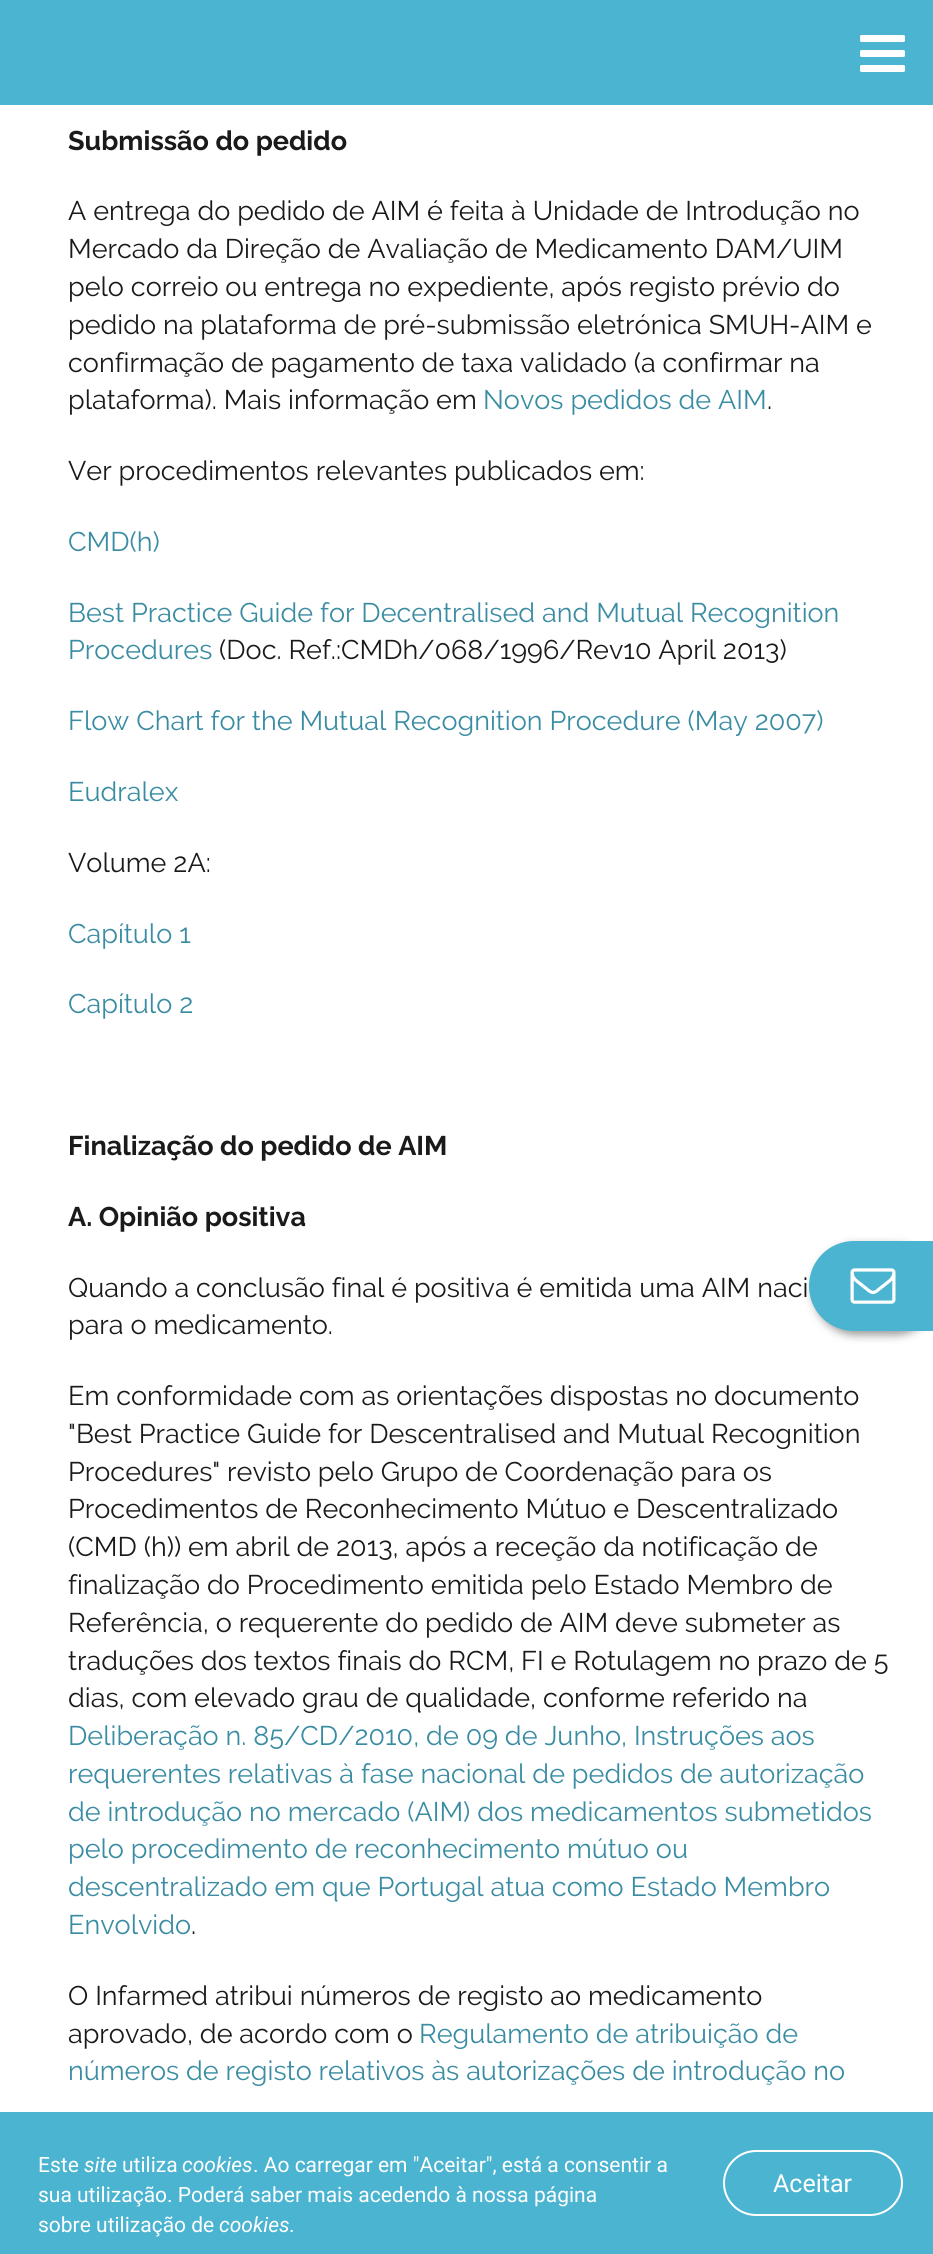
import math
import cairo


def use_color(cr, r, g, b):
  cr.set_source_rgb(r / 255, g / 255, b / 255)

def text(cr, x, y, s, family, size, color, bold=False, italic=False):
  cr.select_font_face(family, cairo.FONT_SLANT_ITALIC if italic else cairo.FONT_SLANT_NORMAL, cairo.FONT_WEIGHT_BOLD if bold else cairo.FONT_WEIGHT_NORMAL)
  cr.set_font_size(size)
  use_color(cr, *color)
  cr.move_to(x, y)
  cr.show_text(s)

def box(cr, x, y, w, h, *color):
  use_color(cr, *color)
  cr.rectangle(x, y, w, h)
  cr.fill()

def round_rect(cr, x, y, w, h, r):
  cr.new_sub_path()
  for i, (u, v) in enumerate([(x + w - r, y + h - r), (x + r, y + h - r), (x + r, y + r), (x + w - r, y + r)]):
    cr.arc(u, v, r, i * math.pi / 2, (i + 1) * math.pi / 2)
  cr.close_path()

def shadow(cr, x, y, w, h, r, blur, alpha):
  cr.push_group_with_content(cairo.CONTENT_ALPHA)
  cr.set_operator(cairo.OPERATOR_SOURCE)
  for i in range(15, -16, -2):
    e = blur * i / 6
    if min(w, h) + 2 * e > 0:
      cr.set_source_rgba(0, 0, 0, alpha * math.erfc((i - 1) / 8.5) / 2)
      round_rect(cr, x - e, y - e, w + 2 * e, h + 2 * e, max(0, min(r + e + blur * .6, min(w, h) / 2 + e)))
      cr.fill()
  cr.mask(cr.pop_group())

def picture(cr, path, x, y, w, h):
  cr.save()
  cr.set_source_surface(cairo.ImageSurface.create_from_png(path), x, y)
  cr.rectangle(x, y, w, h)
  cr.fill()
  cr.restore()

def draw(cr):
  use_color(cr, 255, 255, 255)
  cr.paint()
  box(cr, 0, 0, 933, 105, 75, 180, 209)
  use_color(cr, 255, 255, 255)
  round_rect(cr, 860, 50, 45, 7, 1.5)
  cr.fill()
  round_rect(cr, 860, 35, 45, 7, 1.5)
  cr.fill()
  round_rect(cr, 860, 65, 45, 7, 1.5)
  cr.fill()
  box(cr, 0, 2112, 933, 142, 75, 180, 209)
  use_color(cr, 111, 195, 218)
  cr.new_path()
  cr.move_to(756, 2152)
  cr.line_to(870, 2152)
  cr.curve_to(887, 2152, 902, 2167, 902, 2183)
  cr.line_to(902, 2182)
  cr.curve_to(902, 2165, 888, 2151, 870, 2151)
  cr.line_to(756, 2151)
  cr.curve_to(744, 2151, 733, 2158, 728, 2169)
  cr.curve_to(734, 2159, 744, 2152, 756, 2152)
  cr.close_path()
  cr.fill()
  round_rect(cr, 724, 2151, 178, 64, 32)
  use_color(cr, 255, 255, 255)
  cr.stroke()
  use_color(cr, 0, 0, 0)
  shadow(cr, 813, 1245, 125, 90, 45, 4.5, 0.4)
  use_color(cr, 75, 180, 209)
  cr.new_path()
  cr.move_to(854, 1241)
  cr.line_to(933, 1241)
  cr.line_to(933, 1331)
  cr.line_to(854, 1331)
  cr.curve_to(829, 1331, 809, 1311, 809, 1286)
  cr.curve_to(809, 1261, 829, 1241, 854, 1241)
  cr.close_path()
  cr.fill()
  picture(cr, "img_01.png", 850, 1268, 46, 36)
  text(cr, 68, 150, "Submissão do pedido", "Raleway", 27, (26, 26, 26), bold=True)
  text(cr, 68, 220, "A entrega do pedido de AIM é feita à Unidade de Introdução no", "Raleway", 27, (26, 26, 26))
  text(cr, 68, 258, "Mercado da Direção de Avaliação de Medicamento DAM/UIM", "Raleway", 27, (26, 26, 26))
  text(cr, 68, 296, "pelo correio ou entrega no expediente, após registo prévio do", "Raleway", 27, (26, 26, 26))
  text(cr, 68, 334, "pedido na plataforma de pré-submissão eletrónica SMUH-AIM e", "Raleway", 27, (26, 26, 26))
  text(cr, 68, 372, "confirmação de pagamento de taxa validado (a confirmar na", "Raleway", 27, (26, 26, 26))
  text(cr, 68, 409, "plataforma). Mais informação em", "Raleway", 27, (26, 26, 26))
  text(cr, 483, 409, "Novos pedidos de AIM", "Raleway", 27, (58, 140, 163))
  text(cr, 767, 409, ".", "Raleway", 27, (26, 26, 26))
  text(cr, 68, 480, "Ver procedimentos relevantes publicados em:", "Raleway", 27, (26, 26, 26))
  text(cr, 68, 551, "CMD(h)", "Raleway", 27, (58, 140, 163))
  text(cr, 68, 622, "Best Practice Guide for Decentralised and Mutual Recognition", "Raleway", 27, (58, 140, 163))
  text(cr, 68, 659, "Procedures", "Raleway", 27, (58, 140, 163))
  text(cr, 219, 659, "(Doc. Ref.:CMDh/068/1996/Rev10 April 2013)", "Raleway", 27, (26, 26, 26))
  text(cr, 68, 730, "Flow Chart for the Mutual Recognition Procedure (May 2007)", "Raleway", 27, (58, 140, 163))
  text(cr, 68, 801, "Eudralex", "Raleway", 27, (58, 140, 163))
  text(cr, 68, 872, "Volume 2A:", "Raleway", 27, (26, 26, 26))
  text(cr, 68, 943, "Capítulo 1", "Raleway", 27, (58, 140, 163))
  text(cr, 68, 1013, "Capítulo 2", "Raleway", 27, (58, 140, 163))
  text(cr, 68, 1155, "Finalização do pedido de AIM", "Raleway", 27, (26, 26, 26), bold=True)
  text(cr, 68, 1226, "A. Opinião positiva", "Raleway", 27, (26, 26, 26), bold=True)
  text(cr, 68, 1297, "Quando a conclusão final é positiva é emitida uma AIM naci", "Raleway", 27, (26, 26, 26))
  text(cr, 68, 1334, "para o medicamento.", "Raleway", 27, (26, 26, 26))
  text(cr, 68, 1405, "Em conformidade com as orientações dispostas no documento", "Raleway", 27, (26, 26, 26))
  text(cr, 68, 1443, "\"Best Practice Guide for Descentralised and Mutual Recognition", "Raleway", 27, (26, 26, 26))
  text(cr, 68, 1481, "Procedures\" revisto pelo Grupo de Coordenação para os", "Raleway", 27, (26, 26, 26))
  text(cr, 68, 1518, "Procedimentos de Reconhecimento Mútuo e Descentralizado", "Raleway", 27, (26, 26, 26))
  text(cr, 68, 1556, "(CMD (h)) em abril de 2013, após a receção da notificação de", "Raleway", 27, (26, 26, 26))
  text(cr, 68, 1594, "finalização do Procedimento emitida pelo Estado Membro de", "Raleway", 27, (26, 26, 26))
  text(cr, 68, 1632, "Referência, o requerente do pedido de AIM deve submeter as", "Raleway", 27, (26, 26, 26))
  text(cr, 68, 1670, "traduções dos textos finais do RCM, FI e Rotulagem no prazo de 5", "Raleway", 27, (26, 26, 26))
  text(cr, 68, 1707, "dias, com elevado grau de qualidade, conforme referido na", "Raleway", 27, (26, 26, 26))
  text(cr, 68, 1745, "Deliberação n. 85/CD/2010, de 09 de Junho, Instruções aos", "Raleway", 27, (58, 140, 163))
  text(cr, 68, 1783, "requerentes relativas à fase nacional de pedidos de autorização", "Raleway", 27, (58, 140, 163))
  text(cr, 68, 1821, "de introdução no mercado (AIM) dos medicamentos submetidos", "Raleway", 27, (58, 140, 163))
  text(cr, 68, 1858, "pelo procedimento de reconhecimento mútuo ou", "Raleway", 27, (58, 140, 163))
  text(cr, 68, 1896, "descentralizado em que Portugal atua como Estado Membro", "Raleway", 27, (58, 140, 163))
  text(cr, 68, 1934, "Envolvido", "Raleway", 27, (58, 140, 163))
  text(cr, 191, 1934, ".", "Raleway", 27, (26, 26, 26))
  text(cr, 68, 2005, "O Infarmed atribui números de registo ao medicamento", "Raleway", 27, (26, 26, 26))
  text(cr, 68, 2043, "aprovado, de acordo com o", "Raleway", 27, (26, 26, 26))
  text(cr, 419, 2043, "Regulamento de atribuição de", "Raleway", 27, (58, 140, 163))
  text(cr, 68, 2080, "números de registo relativos às autorizações de introdução no", "Raleway", 27, (58, 140, 163))
  text(cr, 38, 2172, "Este", "Roboto", 21, (255, 255, 255))
  text(cr, 84, 2172, "site", "Roboto", 21, (255, 255, 255), italic=True)
  text(cr, 122, 2172, "utiliza", "Roboto", 21, (255, 255, 255))
  text(cr, 182, 2172, "cookies", "Roboto", 21, (255, 255, 255), italic=True)
  text(cr, 253, 2172, ". Ao carregar em \"Aceitar\", está a consentir a", "Roboto", 21, (255, 255, 255))
  text(cr, 38, 2202, "sua utilização. Poderá saber mais acedendo à nossa página", "Roboto", 21, (255, 255, 255))
  text(cr, 38, 2232, "sobre utilização de", "Roboto", 21, (255, 255, 255))
  text(cr, 219, 2232, "cookies", "Roboto", 21, (255, 255, 255), italic=True)
  text(cr, 289, 2232, ".", "Roboto", 21, (255, 255, 255))
  text(cr, 773, 2192, "Aceitar", "Roboto", 25, (255, 255, 255))


surface = cairo.ImageSurface(cairo.FORMAT_RGB24, 933, 2254)
cr = cairo.Context(surface)
options = cairo.FontOptions()
options.set_hint_metrics(cairo.HINT_METRICS_OFF)
options.set_hint_style(cairo.HINT_STYLE_NONE)
cr.set_font_options(options)
cr.set_miter_limit(4)
draw(cr)
surface.write_to_png("out.png")
